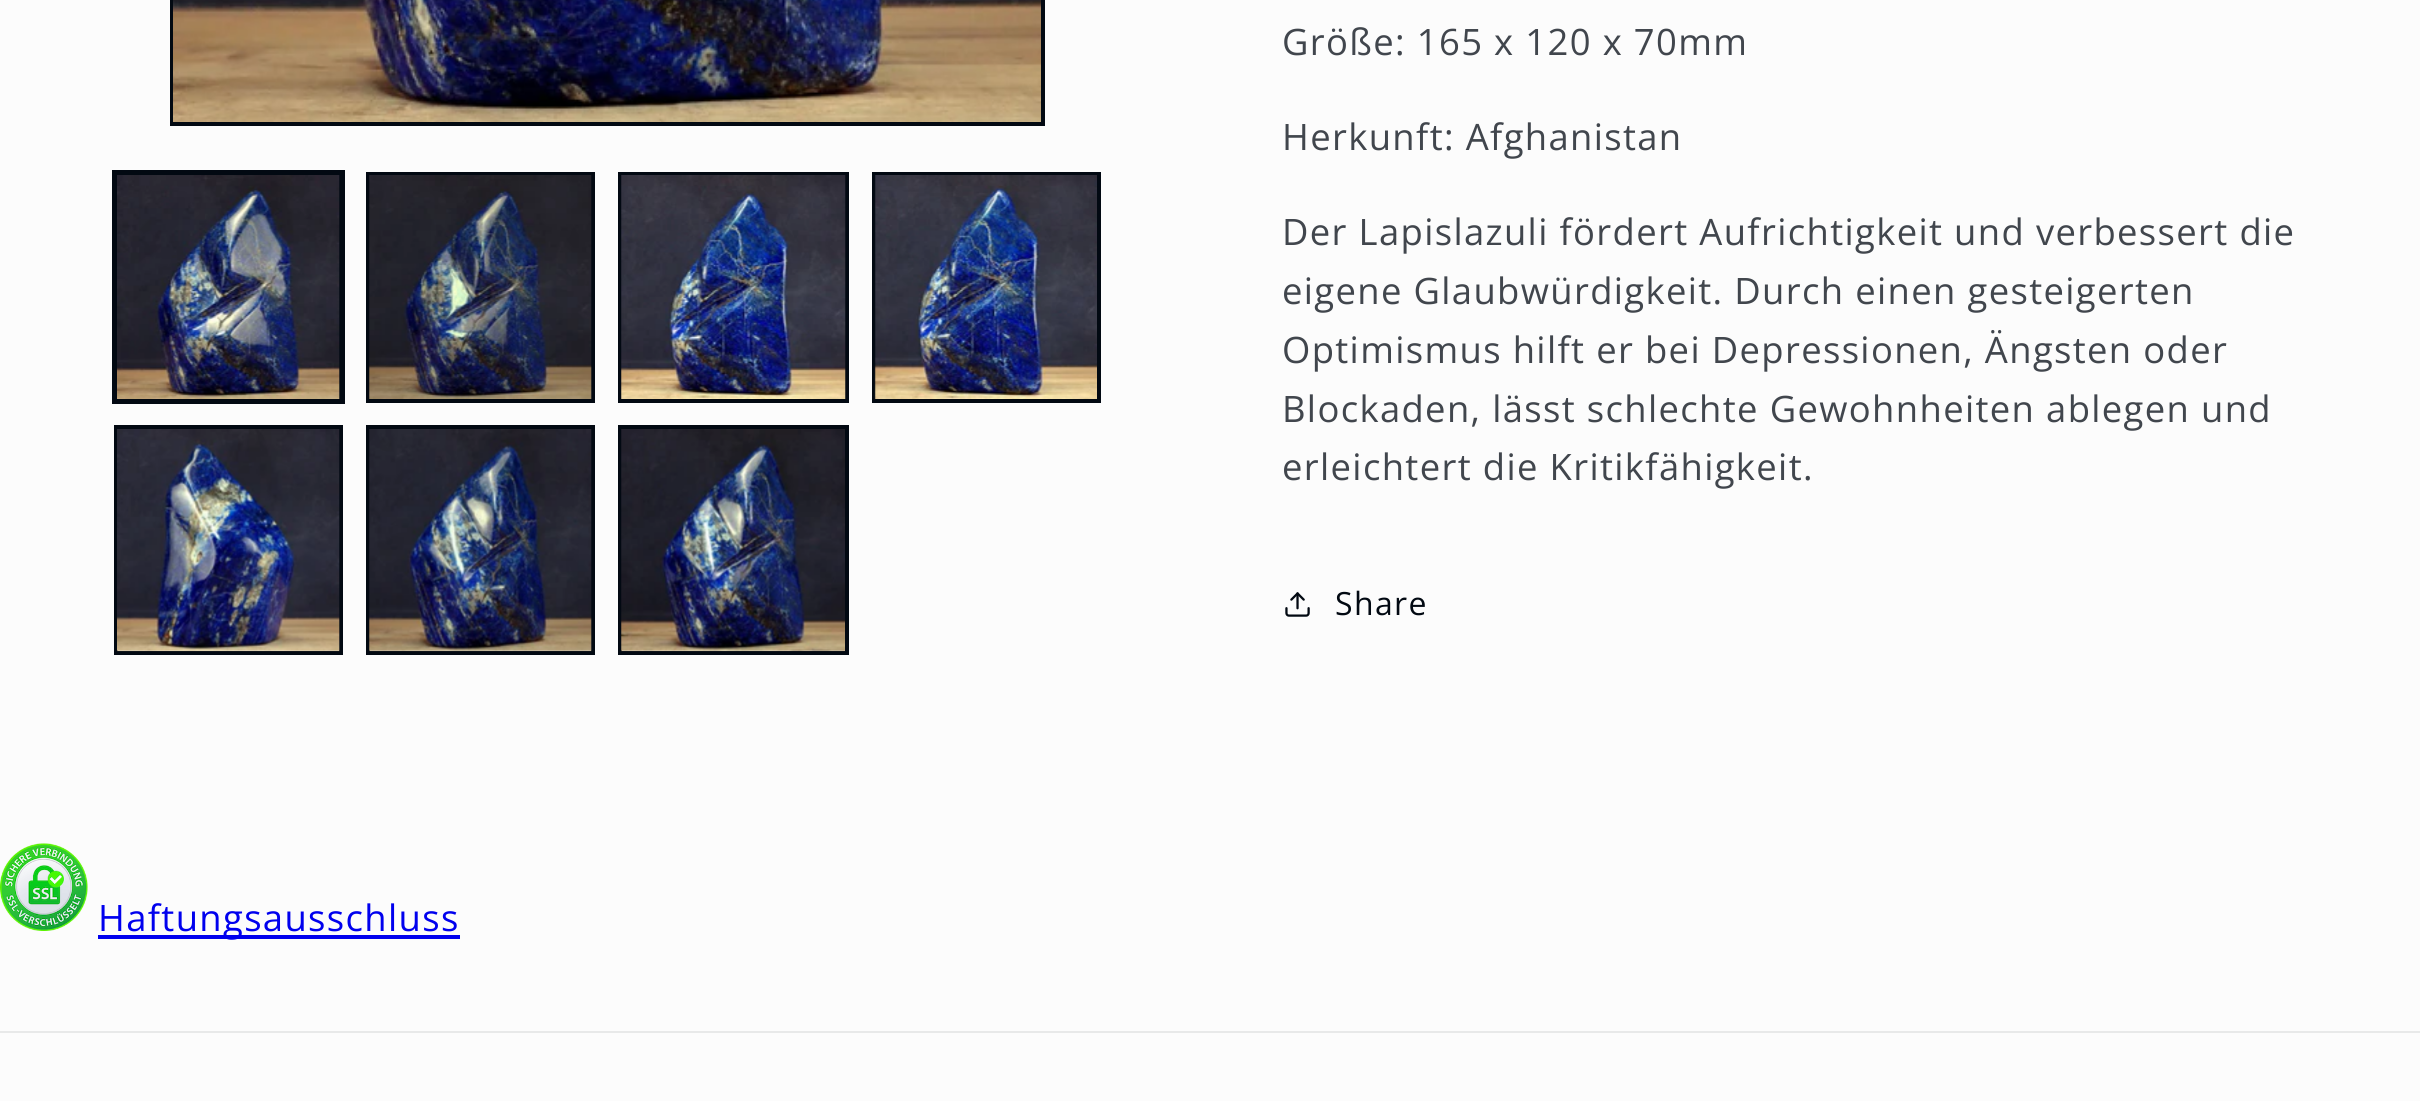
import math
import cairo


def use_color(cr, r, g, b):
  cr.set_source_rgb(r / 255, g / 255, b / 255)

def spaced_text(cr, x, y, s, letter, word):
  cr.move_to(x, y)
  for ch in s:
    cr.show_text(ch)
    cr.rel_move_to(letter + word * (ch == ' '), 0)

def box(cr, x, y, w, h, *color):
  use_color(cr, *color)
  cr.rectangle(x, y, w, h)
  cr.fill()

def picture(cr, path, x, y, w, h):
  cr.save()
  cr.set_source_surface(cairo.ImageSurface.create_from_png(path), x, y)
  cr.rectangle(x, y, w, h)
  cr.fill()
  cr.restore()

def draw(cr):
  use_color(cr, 252, 252, 252)
  cr.paint()
  cr.rectangle(172, -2, 871, 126)
  use_color(cr, 2, 9, 18)
  cr.set_line_width(4)
  cr.stroke()
  picture(cr, "img_01.png", 173, 0, 868, 122)
  cr.rectangle(113, 171, 231, 232)
  cr.set_line_width(2)
  cr.stroke()
  cr.rectangle(116, 174, 225, 227)
  cr.set_line_width(4)
  cr.stroke()
  picture(cr, "img_02.png", 117, 175, 223, 224)
  cr.rectangle(368, 174, 225, 227)
  cr.stroke()
  picture(cr, "img_03.png", 369, 175, 223, 224)
  cr.rectangle(620, 174, 227, 227)
  cr.stroke()
  picture(cr, "img_04.png", 621, 175, 225, 224)
  cr.rectangle(874, 174, 225, 227)
  cr.stroke()
  picture(cr, "img_05.png", 874, 175, 223, 224)
  cr.rectangle(116, 427, 225, 226)
  cr.stroke()
  picture(cr, "img_06.png", 117, 429, 223, 223)
  cr.rectangle(368, 427, 225, 226)
  cr.stroke()
  picture(cr, "img_07.png", 369, 429, 223, 223)
  cr.rectangle(620, 427, 227, 226)
  cr.stroke()
  picture(cr, "img_08.png", 621, 429, 224, 223)
  picture(cr, "img_09.png", 1285, 592, 25, 25)
  picture(cr, "img_10.png", 0, 843, 88, 88)
  box(cr, 98, 935, 362, 4, 0, 0, 238)
  box(cr, 0, 1031, 2420, 2, 232, 233, 233)
  cr.select_font_face("Open Sans")
  cr.set_font_size(36.4)
  use_color(cr, 65, 70, 77)
  spaced_text(cr, 1282, 55, "Größe: 165 x 120 x 70mm", 1.35, 0)
  spaced_text(cr, 1282, 150, "Herkunft: Afghanistan", 1.35, 0)
  spaced_text(cr, 1282, 245, "Der Lapislazuli fördert Aufrichtigkeit und verbessert die", 1.35, 0)
  spaced_text(cr, 1282, 304, "eigene Glaubwürdigkeit. Durch einen gesteigerten", 1.35, 0)
  spaced_text(cr, 1282, 363, "Optimismus hilft er bei Depressionen, Ängsten oder", 1.35, 0)
  spaced_text(cr, 1282, 422, "Blockaden, lässt schlechte Gewohnheiten ablegen und", 1.35, 0)
  spaced_text(cr, 1282, 480, "erleichtert die Kritikfähigkeit.", 1.35, 0)
  cr.set_font_size(32)
  use_color(cr, 2, 9, 18)
  spaced_text(cr, 1335, 615, "Share", 1.35, 0)
  cr.set_font_size(36.4)
  use_color(cr, 0, 0, 238)
  spaced_text(cr, 98, 931, "Haftungsausschluss", 1.35, 0)


surface = cairo.ImageSurface(cairo.FORMAT_RGB24, 2420, 1101)
cr = cairo.Context(surface)
options = cairo.FontOptions()
options.set_hint_metrics(cairo.HINT_METRICS_OFF)
options.set_hint_style(cairo.HINT_STYLE_NONE)
cr.set_font_options(options)
cr.set_miter_limit(4)
draw(cr)
surface.write_to_png("out.png")
